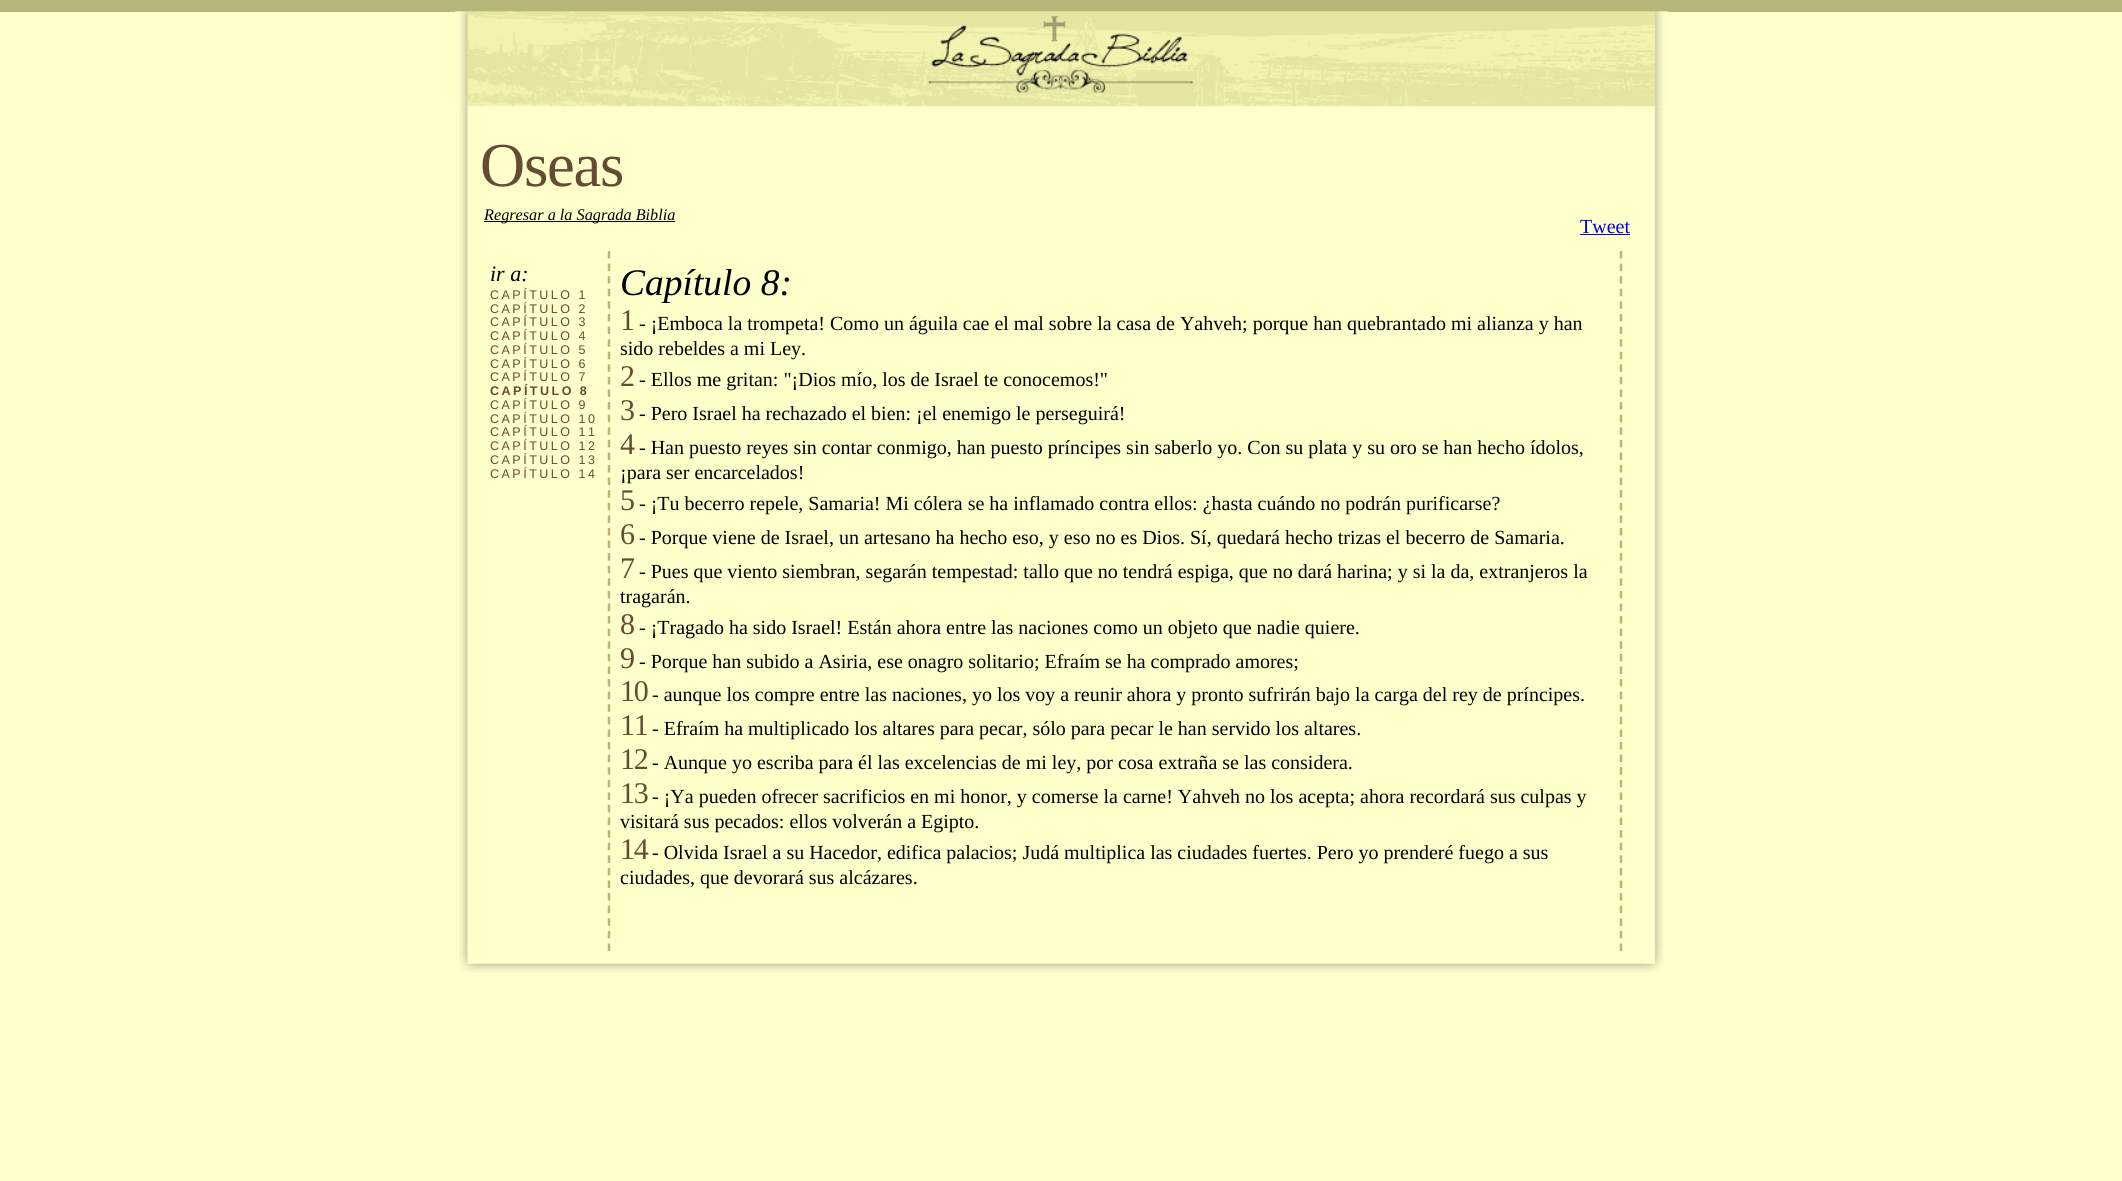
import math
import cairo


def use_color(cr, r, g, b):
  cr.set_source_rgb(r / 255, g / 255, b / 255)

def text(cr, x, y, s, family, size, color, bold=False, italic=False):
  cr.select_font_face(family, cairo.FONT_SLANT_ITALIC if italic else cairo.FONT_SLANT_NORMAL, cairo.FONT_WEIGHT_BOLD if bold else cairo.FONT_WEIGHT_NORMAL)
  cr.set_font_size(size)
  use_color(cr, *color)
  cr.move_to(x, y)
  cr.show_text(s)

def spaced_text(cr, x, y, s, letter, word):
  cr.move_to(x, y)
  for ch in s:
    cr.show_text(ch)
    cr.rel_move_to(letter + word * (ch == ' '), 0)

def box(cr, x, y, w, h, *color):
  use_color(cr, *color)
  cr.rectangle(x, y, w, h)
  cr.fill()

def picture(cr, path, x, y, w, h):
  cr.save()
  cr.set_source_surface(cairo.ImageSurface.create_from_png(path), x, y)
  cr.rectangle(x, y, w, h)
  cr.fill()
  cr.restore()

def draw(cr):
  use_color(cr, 255, 255, 204)
  cr.paint()
  box(cr, 0, 0, 2122, 12, 182, 182, 122)
  picture(cr, "img_02.png", 459, 106, 9, 846)
  picture(cr, "img_03.png", 1654, 106, 10, 846)
  picture(cr, "img_01.png", 455, 11, 1213, 96)
  box(cr, 484, 221, 191, 1, 0, 0, 0)
  box(cr, 1580, 234, 50, 1, 0, 0, 238)
  cr.new_path()
  cr.move_to(609, 251)
  cr.line_to(609, 951)
  use_color(cr, 182, 182, 122)
  cr.set_line_width(2.5)
  cr.set_dash([7.5, 5.09])
  cr.stroke()
  cr.new_path()
  cr.move_to(1621, 251)
  cr.line_to(1621, 951)
  cr.stroke()
  picture(cr, "img_04.png", 459, 951, 1205, 22)
  cr.select_font_face("Liberation Serif")
  cr.set_font_size(62.5)
  use_color(cr, 102, 75, 51)
  spaced_text(cr, 480, 186, "Oseas", -1.25, 0)
  text(cr, 484, 220, "Regresar a la Sagrada Biblia", "Liberation Serif", 16.25, (0, 0, 0), italic=True)
  text(cr, 1580, 233, "Tweet", "Liberation Serif", 20, (0, 0, 238))
  text(cr, 490, 281, "ir a:", "Liberation Serif", 22, (0, 0, 0), italic=True)
  cr.select_font_face("Liberation Sans")
  cr.set_font_size(12.5)
  use_color(cr, 102, 75, 51)
  spaced_text(cr, 490, 299, "CAPÍTULO 1", 2.5, 0)
  spaced_text(cr, 490, 313, "CAPÍTULO 2", 2.5, 0)
  spaced_text(cr, 490, 326, "CAPÍTULO 3", 2.5, 0)
  spaced_text(cr, 490, 340, "CAPÍTULO 4", 2.5, 0)
  spaced_text(cr, 490, 354, "CAPÍTULO 5", 2.5, 0)
  spaced_text(cr, 490, 368, "CAPÍTULO 6", 2.5, 0)
  spaced_text(cr, 490, 381, "CAPÍTULO 7", 2.5, 0)
  cr.select_font_face("Liberation Sans", cairo.FONT_SLANT_NORMAL, cairo.FONT_WEIGHT_BOLD)
  spaced_text(cr, 490, 395, "CAPÍTULO 8", 2.5, 0)
  cr.select_font_face("Liberation Sans")
  spaced_text(cr, 490, 409, "CAPÍTULO 9", 2.5, 0)
  spaced_text(cr, 490, 423, "CAPÍTULO 10", 2.5, 0)
  spaced_text(cr, 490, 436, "CAPÍTULO 11", 2.5, 0)
  spaced_text(cr, 490, 450, "CAPÍTULO 12", 2.5, 0)
  spaced_text(cr, 490, 464, "CAPÍTULO 13", 2.5, 0)
  spaced_text(cr, 490, 478, "CAPÍTULO 14", 2.5, 0)
  text(cr, 620, 295, "Capítulo 8:", "Liberation Serif", 37.5, (0, 0, 0), italic=True)
  cr.select_font_face("Liberation Serif")
  cr.set_font_size(30)
  use_color(cr, 102, 75, 51)
  spaced_text(cr, 620, 330, "1", -1.25, 0)
  text(cr, 639, 330, "- ¡Emboca la trompeta! Como un águila cae el mal sobre la casa de Yahveh; porque han quebrantado mi alianza y han", "Liberation Serif", 20, (0, 0, 0))
  text(cr, 620, 355, "sido rebeldes a mi Ley.", "Liberation Serif", 20, (0, 0, 0))
  cr.set_font_size(30)
  use_color(cr, 102, 75, 51)
  spaced_text(cr, 620, 386, "2", -1.25, 0)
  text(cr, 639, 386, "- Ellos me gritan: \"¡Dios mío, los de Israel te conocemos!\"", "Liberation Serif", 20, (0, 0, 0))
  cr.set_font_size(30)
  use_color(cr, 102, 75, 51)
  spaced_text(cr, 620, 420, "3", -1.25, 0)
  text(cr, 639, 420, "- Pero Israel ha rechazado el bien: ¡el enemigo le perseguirá!", "Liberation Serif", 20, (0, 0, 0))
  cr.set_font_size(30)
  use_color(cr, 102, 75, 51)
  spaced_text(cr, 620, 454, "4", -1.25, 0)
  text(cr, 639, 454, "- Han puesto reyes sin contar conmigo, han puesto príncipes sin saberlo yo. Con su plata y su oro se han hecho ídolos,", "Liberation Serif", 20, (0, 0, 0))
  text(cr, 620, 479, "¡para ser encarcelados!", "Liberation Serif", 20, (0, 0, 0))
  cr.set_font_size(30)
  use_color(cr, 102, 75, 51)
  spaced_text(cr, 620, 510, "5", -1.25, 0)
  text(cr, 639, 510, "- ¡Tu becerro repele, Samaria! Mi cólera se ha inflamado contra ellos: ¿hasta cuándo no podrán purificarse?", "Liberation Serif", 20, (0, 0, 0))
  cr.set_font_size(30)
  use_color(cr, 102, 75, 51)
  spaced_text(cr, 620, 544, "6", -1.25, 0)
  text(cr, 639, 544, "- Porque viene de Israel, un artesano ha hecho eso, y eso no es Dios. Sí, quedará hecho trizas el becerro de Samaria.", "Liberation Serif", 20, (0, 0, 0))
  cr.set_font_size(30)
  use_color(cr, 102, 75, 51)
  spaced_text(cr, 620, 578, "7", -1.25, 0)
  text(cr, 639, 578, "- Pues que viento siembran, segarán tempestad: tallo que no tendrá espiga, que no dará harina; y si la da, extranjeros la", "Liberation Serif", 20, (0, 0, 0))
  text(cr, 620, 603, "tragarán.", "Liberation Serif", 20, (0, 0, 0))
  cr.set_font_size(30)
  use_color(cr, 102, 75, 51)
  spaced_text(cr, 620, 634, "8", -1.25, 0)
  text(cr, 639, 634, "- ¡Tragado ha sido Israel! Están ahora entre las naciones como un objeto que nadie quiere.", "Liberation Serif", 20, (0, 0, 0))
  cr.set_font_size(30)
  use_color(cr, 102, 75, 51)
  spaced_text(cr, 620, 668, "9", -1.25, 0)
  text(cr, 639, 668, "- Porque han subido a Asiria, ese onagro solitario; Efraím se ha comprado amores;", "Liberation Serif", 20, (0, 0, 0))
  cr.set_font_size(30)
  use_color(cr, 102, 75, 51)
  spaced_text(cr, 620, 701, "10", -1.25, 0)
  text(cr, 652, 701, "- aunque los compre entre las naciones, yo los voy a reunir ahora y pronto sufrirán bajo la carga del rey de príncipes.", "Liberation Serif", 20, (0, 0, 0))
  cr.set_font_size(30)
  use_color(cr, 102, 75, 51)
  spaced_text(cr, 620, 735, "11", -1.25, 0)
  text(cr, 652, 735, "- Efraím ha multiplicado los altares para pecar, sólo para pecar le han servido los altares.", "Liberation Serif", 20, (0, 0, 0))
  cr.set_font_size(30)
  use_color(cr, 102, 75, 51)
  spaced_text(cr, 620, 769, "12", -1.25, 0)
  text(cr, 652, 769, "- Aunque yo escriba para él las excelencias de mi ley, por cosa extraña se las considera.", "Liberation Serif", 20, (0, 0, 0))
  cr.set_font_size(30)
  use_color(cr, 102, 75, 51)
  spaced_text(cr, 620, 803, "13", -1.25, 0)
  text(cr, 652, 803, "- ¡Ya pueden ofrecer sacrificios en mi honor, y comerse la carne! Yahveh no los acepta; ahora recordará sus culpas y", "Liberation Serif", 20, (0, 0, 0))
  text(cr, 620, 828, "visitará sus pecados: ellos volverán a Egipto.", "Liberation Serif", 20, (0, 0, 0))
  cr.set_font_size(30)
  use_color(cr, 102, 75, 51)
  spaced_text(cr, 620, 859, "14", -1.25, 0)
  text(cr, 652, 859, "- Olvida Israel a su Hacedor, edifica palacios; Judá multiplica las ciudades fuertes. Pero yo prenderé fuego a sus", "Liberation Serif", 20, (0, 0, 0))
  text(cr, 620, 884, "ciudades, que devorará sus alcázares.", "Liberation Serif", 20, (0, 0, 0))


surface = cairo.ImageSurface(cairo.FORMAT_RGB24, 2122, 1181)
cr = cairo.Context(surface)
options = cairo.FontOptions()
options.set_hint_metrics(cairo.HINT_METRICS_OFF)
options.set_hint_style(cairo.HINT_STYLE_NONE)
cr.set_font_options(options)
cr.set_miter_limit(4)
draw(cr)
surface.write_to_png("out.png")
